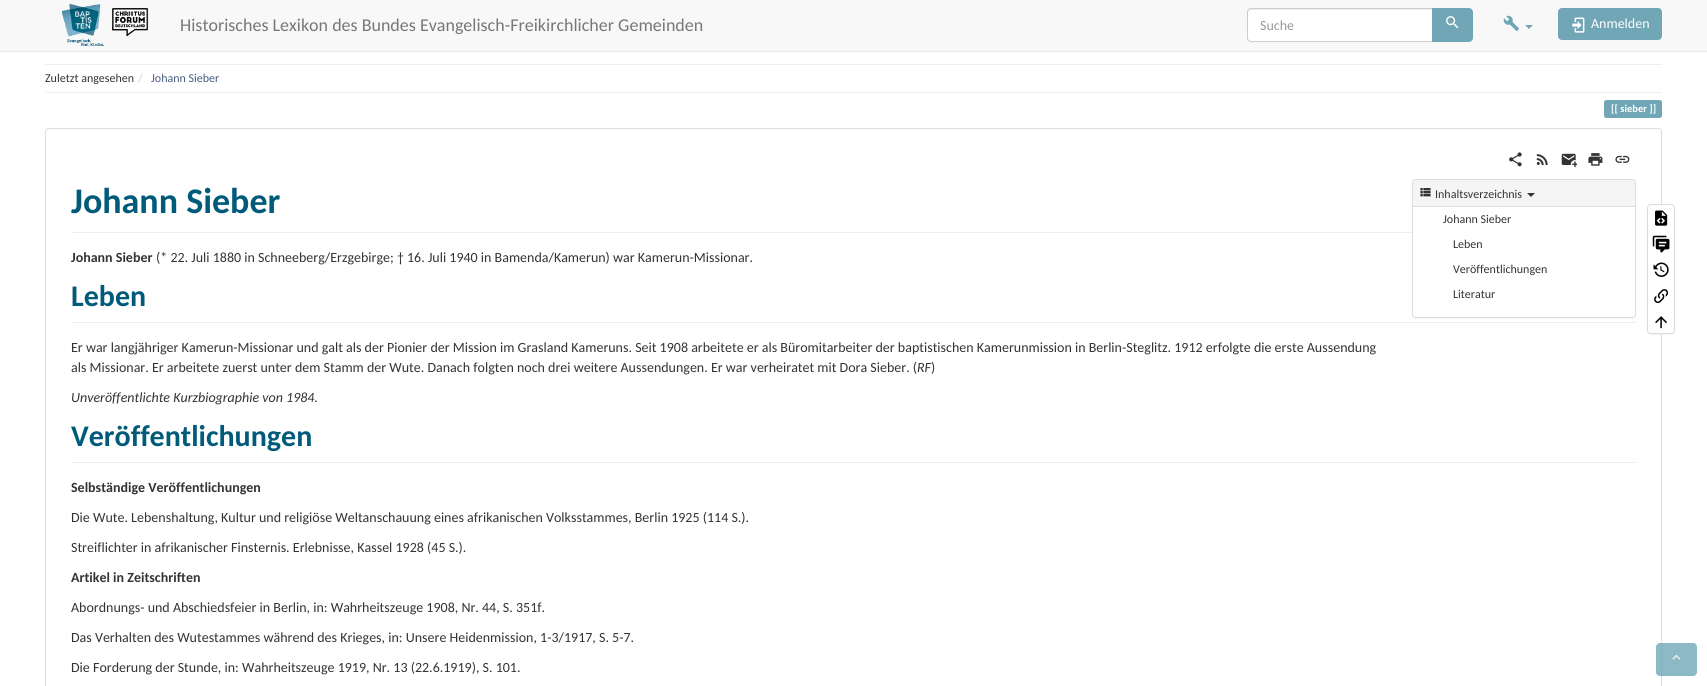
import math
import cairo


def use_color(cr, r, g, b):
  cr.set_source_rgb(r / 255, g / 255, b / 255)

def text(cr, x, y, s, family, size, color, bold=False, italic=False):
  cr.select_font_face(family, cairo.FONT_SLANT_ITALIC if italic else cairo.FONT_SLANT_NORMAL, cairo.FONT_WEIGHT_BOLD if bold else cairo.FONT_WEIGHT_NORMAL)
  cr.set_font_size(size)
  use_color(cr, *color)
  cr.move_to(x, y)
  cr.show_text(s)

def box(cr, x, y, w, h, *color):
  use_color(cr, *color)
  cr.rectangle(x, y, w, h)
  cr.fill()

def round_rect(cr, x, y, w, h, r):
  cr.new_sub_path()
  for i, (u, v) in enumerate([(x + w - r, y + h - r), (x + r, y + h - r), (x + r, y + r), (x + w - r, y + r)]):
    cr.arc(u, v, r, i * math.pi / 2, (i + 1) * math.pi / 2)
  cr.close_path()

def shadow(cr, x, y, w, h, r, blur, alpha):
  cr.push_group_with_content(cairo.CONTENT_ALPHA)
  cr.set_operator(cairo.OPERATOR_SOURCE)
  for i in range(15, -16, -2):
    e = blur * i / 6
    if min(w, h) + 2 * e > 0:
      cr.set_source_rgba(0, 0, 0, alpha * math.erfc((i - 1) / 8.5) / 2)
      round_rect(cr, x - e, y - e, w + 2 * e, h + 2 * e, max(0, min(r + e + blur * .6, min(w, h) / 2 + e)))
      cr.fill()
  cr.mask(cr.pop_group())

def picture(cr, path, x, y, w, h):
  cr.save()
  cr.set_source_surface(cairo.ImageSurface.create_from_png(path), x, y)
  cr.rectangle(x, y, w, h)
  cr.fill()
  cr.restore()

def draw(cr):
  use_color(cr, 255, 255, 255)
  cr.paint()
  box(cr, 0, 0, 1707, 51, 248, 248, 248)
  box(cr, 0, 51, 1707, 1, 231, 231, 231)
  picture(cr, "img_01.png", 62, 3, 87, 43)
  use_color(cr, 255, 255, 255)
  cr.new_path()
  cr.move_to(1251, 8)
  cr.line_to(1433, 8)
  cr.line_to(1433, 42)
  cr.line_to(1251, 42)
  cr.curve_to(1249, 42, 1247, 40, 1247, 38)
  cr.line_to(1247, 12)
  cr.curve_to(1247, 10, 1249, 8, 1251, 8)
  cr.close_path()
  cr.fill()
  use_color(cr, 236, 236, 236)
  cr.new_path()
  cr.move_to(1251, 10)
  cr.line_to(1432, 10)
  cr.line_to(1432, 9)
  cr.line_to(1250, 9)
  cr.curve_to(1248, 10, 1248, 11, 1248, 13)
  cr.curve_to(1248, 11, 1249, 10, 1251, 10)
  cr.close_path()
  cr.fill()
  cr.new_path()
  cr.move_to(1251, 8.5)
  cr.line_to(1432.5, 8.5)
  cr.line_to(1432.5, 41.5)
  cr.line_to(1251, 41.5)
  cr.curve_to(1249, 41.5, 1247.5, 40, 1247.5, 38)
  cr.line_to(1247.5, 12)
  cr.curve_to(1247.5, 10, 1249, 8.5, 1251, 8.5)
  cr.close_path()
  use_color(cr, 204, 204, 204)
  cr.set_line_width(1)
  cr.stroke()
  use_color(cr, 113, 166, 182)
  cr.new_path()
  cr.move_to(1432, 8)
  cr.line_to(1469, 8)
  cr.curve_to(1471, 8, 1473, 10, 1473, 12)
  cr.line_to(1473, 38)
  cr.curve_to(1473, 40, 1471, 42, 1469, 42)
  cr.line_to(1432, 42)
  cr.close_path()
  cr.fill()
  picture(cr, "img_02.png", 1446, 16, 13, 13)
  picture(cr, "img_03.png", 1503, 15, 16, 16)
  cr.new_path()
  cr.move_to(1525, 25)
  cr.line_to(1533, 25)
  cr.line_to(1529, 29)
  cr.close_path()
  cr.fill()
  round_rect(cr, 1558, 8, 104, 32, 4)
  cr.fill()
  picture(cr, "img_04.png", 1572, 17, 13, 16)
  box(cr, 45, 64, 1617, 1, 238, 238, 238)
  box(cr, 45, 92, 1617, 1, 238, 238, 238)
  use_color(cr, 113, 166, 182)
  cr.new_path()
  cr.move_to(1606.5, 100)
  cr.line_to(1620, 100)
  cr.line_to(1620, 118)
  cr.line_to(1606.5, 118)
  cr.curve_to(1605, 118, 1604, 117, 1604, 115.5)
  cr.line_to(1604, 102.5)
  cr.curve_to(1604, 101, 1605, 100, 1606.5, 100)
  cr.close_path()
  cr.fill()
  box(cr, 1620, 100, 27, 18, 113, 166, 182)
  cr.new_path()
  cr.move_to(1647, 100)
  cr.line_to(1659.5, 100)
  cr.curve_to(1661, 100, 1662, 101, 1662, 102.5)
  cr.line_to(1662, 115.5)
  cr.curve_to(1662, 117, 1661, 118, 1659.5, 118)
  cr.line_to(1647, 118)
  cr.close_path()
  cr.fill()
  round_rect(cr, 45.5, 128.5, 1616, 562, 3.5)
  use_color(cr, 221, 221, 221)
  cr.stroke()
  picture(cr, "img_05.png", 1509, 152, 13, 15)
  picture(cr, "img_06.png", 1536, 154, 12, 11)
  picture(cr, "img_07.png", 1561, 153, 16, 15)
  picture(cr, "img_08.png", 1588, 153, 15, 13)
  picture(cr, "img_09.png", 1615, 155, 15, 8)
  box(cr, 71, 232, 1341, 1, 238, 238, 238)
  box(cr, 71, 322, 1565, 1, 238, 238, 238)
  box(cr, 71, 462, 1565, 1, 238, 238, 238)
  use_color(cr, 0, 0, 0)
  shadow(cr, 1412, 180, 224, 139, 4, 0.5, 0.05)
  use_color(cr, 255, 255, 255)
  round_rect(cr, 1412.5, 179.5, 223, 138, 3.5)
  cr.fill_preserve()
  use_color(cr, 221, 221, 221)
  cr.stroke()
  use_color(cr, 245, 245, 245)
  cr.new_path()
  cr.move_to(1416, 180)
  cr.line_to(1632, 180)
  cr.curve_to(1633.5, 180, 1635, 181.5, 1635, 183)
  cr.line_to(1635, 207)
  cr.line_to(1413, 207)
  cr.line_to(1413, 183)
  cr.curve_to(1413, 181.5, 1414.5, 180, 1416, 180)
  cr.close_path()
  cr.fill()
  box(cr, 1413, 206, 222, 1, 221, 221, 221)
  picture(cr, "img_10.png", 1420, 188, 11, 9)
  use_color(cr, 51, 51, 51)
  cr.new_path()
  cr.move_to(1527, 193)
  cr.line_to(1535, 193)
  cr.line_to(1531, 197)
  cr.close_path()
  cr.fill()
  use_color(cr, 0, 0, 0)
  shadow(cr, 1647, 205, 28, 130, 4, 0.5, 0.05)
  use_color(cr, 255, 255, 255)
  round_rect(cr, 1647.5, 204.5, 27, 129, 3.5)
  cr.fill_preserve()
  use_color(cr, 221, 221, 221)
  cr.stroke()
  picture(cr, "img_11.png", 1655, 210, 13, 16)
  picture(cr, "img_12.png", 1652, 235, 18, 18)
  picture(cr, "img_13.png", 1653, 262, 16, 15)
  picture(cr, "img_14.png", 1654, 289, 15, 15)
  picture(cr, "img_15.png", 1655, 316, 12, 13)
  cr.set_source_rgba(0.443, 0.651, 0.714, 0.8)
  round_rect(cr, 1656, 643, 41, 33, 4)
  cr.fill()
  picture(cr, "img_16.png", 1672, 654, 9, 6)
  text(cr, 180, 31, "Historisches Lexikon des Bundes Evangelisch-Freikirchlicher Gemeinden", "Carlito", 18, (119, 119, 119))
  text(cr, 1260, 30, "Suche", "Carlito", 14, (153, 153, 153))
  text(cr, 1591, 28, "Anmelden", "Carlito", 14, (255, 255, 255))
  text(cr, 45, 82, "Zuletzt angesehen", "Carlito", 12, (51, 51, 51))
  text(cr, 138, 82, "/", "Carlito", 12, (204, 204, 204))
  text(cr, 151, 82, "Johann Sieber", "Carlito", 12, (69, 93, 130))
  text(cr, 1611, 112, "[[ sieber ]]", "Carlito", 10.5, (255, 255, 255), bold=True)
  text(cr, 71, 213, "Johann Sieber", "Carlito", 36, (0, 90, 122), bold=True)
  text(cr, 71, 262, "Johann Sieber", "Carlito", 14, (51, 51, 51), bold=True)
  text(cr, 156, 262, "(* 22. Juli 1880 in Schneeberg/Erzgebirge; † 16. Juli 1940 in Bamenda/Kamerun) war Kamerun-Missionar.", "Carlito", 14, (51, 51, 51))
  text(cr, 71, 306, "Leben", "Carlito", 30, (0, 90, 122), bold=True)
  text(cr, 71, 352, "Er war langjähriger Kamerun-Missionar und galt als der Pionier der Mission im Grasland Kameruns. Seit 1908 arbeitete er als Büromitarbeiter der baptistischen Kamerunmission in Berlin-Steglitz. 1912 erfolgte die erste Aussendung", "Carlito", 14, (51, 51, 51))
  text(cr, 71, 372, "als Missionar. Er arbeitete zuerst unter dem Stamm der Wute. Danach folgten noch drei weitere Aussendungen. Er war verheiratet mit Dora Sieber. (", "Carlito", 14, (51, 51, 51))
  text(cr, 917, 372, "RF", "Carlito", 14, (51, 51, 51), italic=True)
  text(cr, 931, 372, ")", "Carlito", 14, (51, 51, 51))
  text(cr, 71, 402, "Unveröffentlichte Kurzbiographie von 1984.", "Carlito", 14, (51, 51, 51), italic=True)
  text(cr, 71, 446, "Veröffentlichungen", "Carlito", 30, (0, 90, 122), bold=True)
  text(cr, 71, 492, "Selbständige Veröffentlichungen", "Carlito", 14, (51, 51, 51), bold=True)
  text(cr, 71, 522, "Die Wute. Lebenshaltung, Kultur und religiöse Weltanschauung eines afrikanischen Volksstammes, Berlin 1925 (114 S.).", "Carlito", 14, (51, 51, 51))
  text(cr, 71, 552, "Streiflichter in afrikanischer Finsternis. Erlebnisse, Kassel 1928 (45 S.).", "Carlito", 14, (51, 51, 51))
  text(cr, 71, 582, "Artikel in Zeitschriften", "Carlito", 14, (51, 51, 51), bold=True)
  text(cr, 71, 612, "Abordnungs- und Abschiedsfeier in Berlin, in: Wahrheitszeuge 1908, Nr. 44, S. 351f.", "Carlito", 14, (51, 51, 51))
  text(cr, 71, 642, "Das Verhalten des Wutestammes während des Krieges, in: Unsere Heidenmission, 1-3/1917, S. 5-7.", "Carlito", 14, (51, 51, 51))
  text(cr, 71, 672, "Die Forderung der Stunde, in: Wahrheitszeuge 1919, Nr. 13 (22.6.1919), S. 101.", "Carlito", 14, (51, 51, 51))
  text(cr, 1435, 198, "Inhaltsverzeichnis", "Carlito", 12, (51, 51, 51))
  text(cr, 1443, 223, "Johann Sieber", "Carlito", 12, (51, 51, 51))
  text(cr, 1453, 248, "Leben", "Carlito", 12, (51, 51, 51))
  text(cr, 1453, 273, "Veröffentlichungen", "Carlito", 12, (51, 51, 51))
  text(cr, 1453, 298, "Literatur", "Carlito", 12, (51, 51, 51))


surface = cairo.ImageSurface(cairo.FORMAT_RGB24, 1707, 686)
cr = cairo.Context(surface)
options = cairo.FontOptions()
options.set_hint_metrics(cairo.HINT_METRICS_OFF)
options.set_hint_style(cairo.HINT_STYLE_NONE)
cr.set_font_options(options)
cr.set_miter_limit(4)
draw(cr)
surface.write_to_png("out.png")
